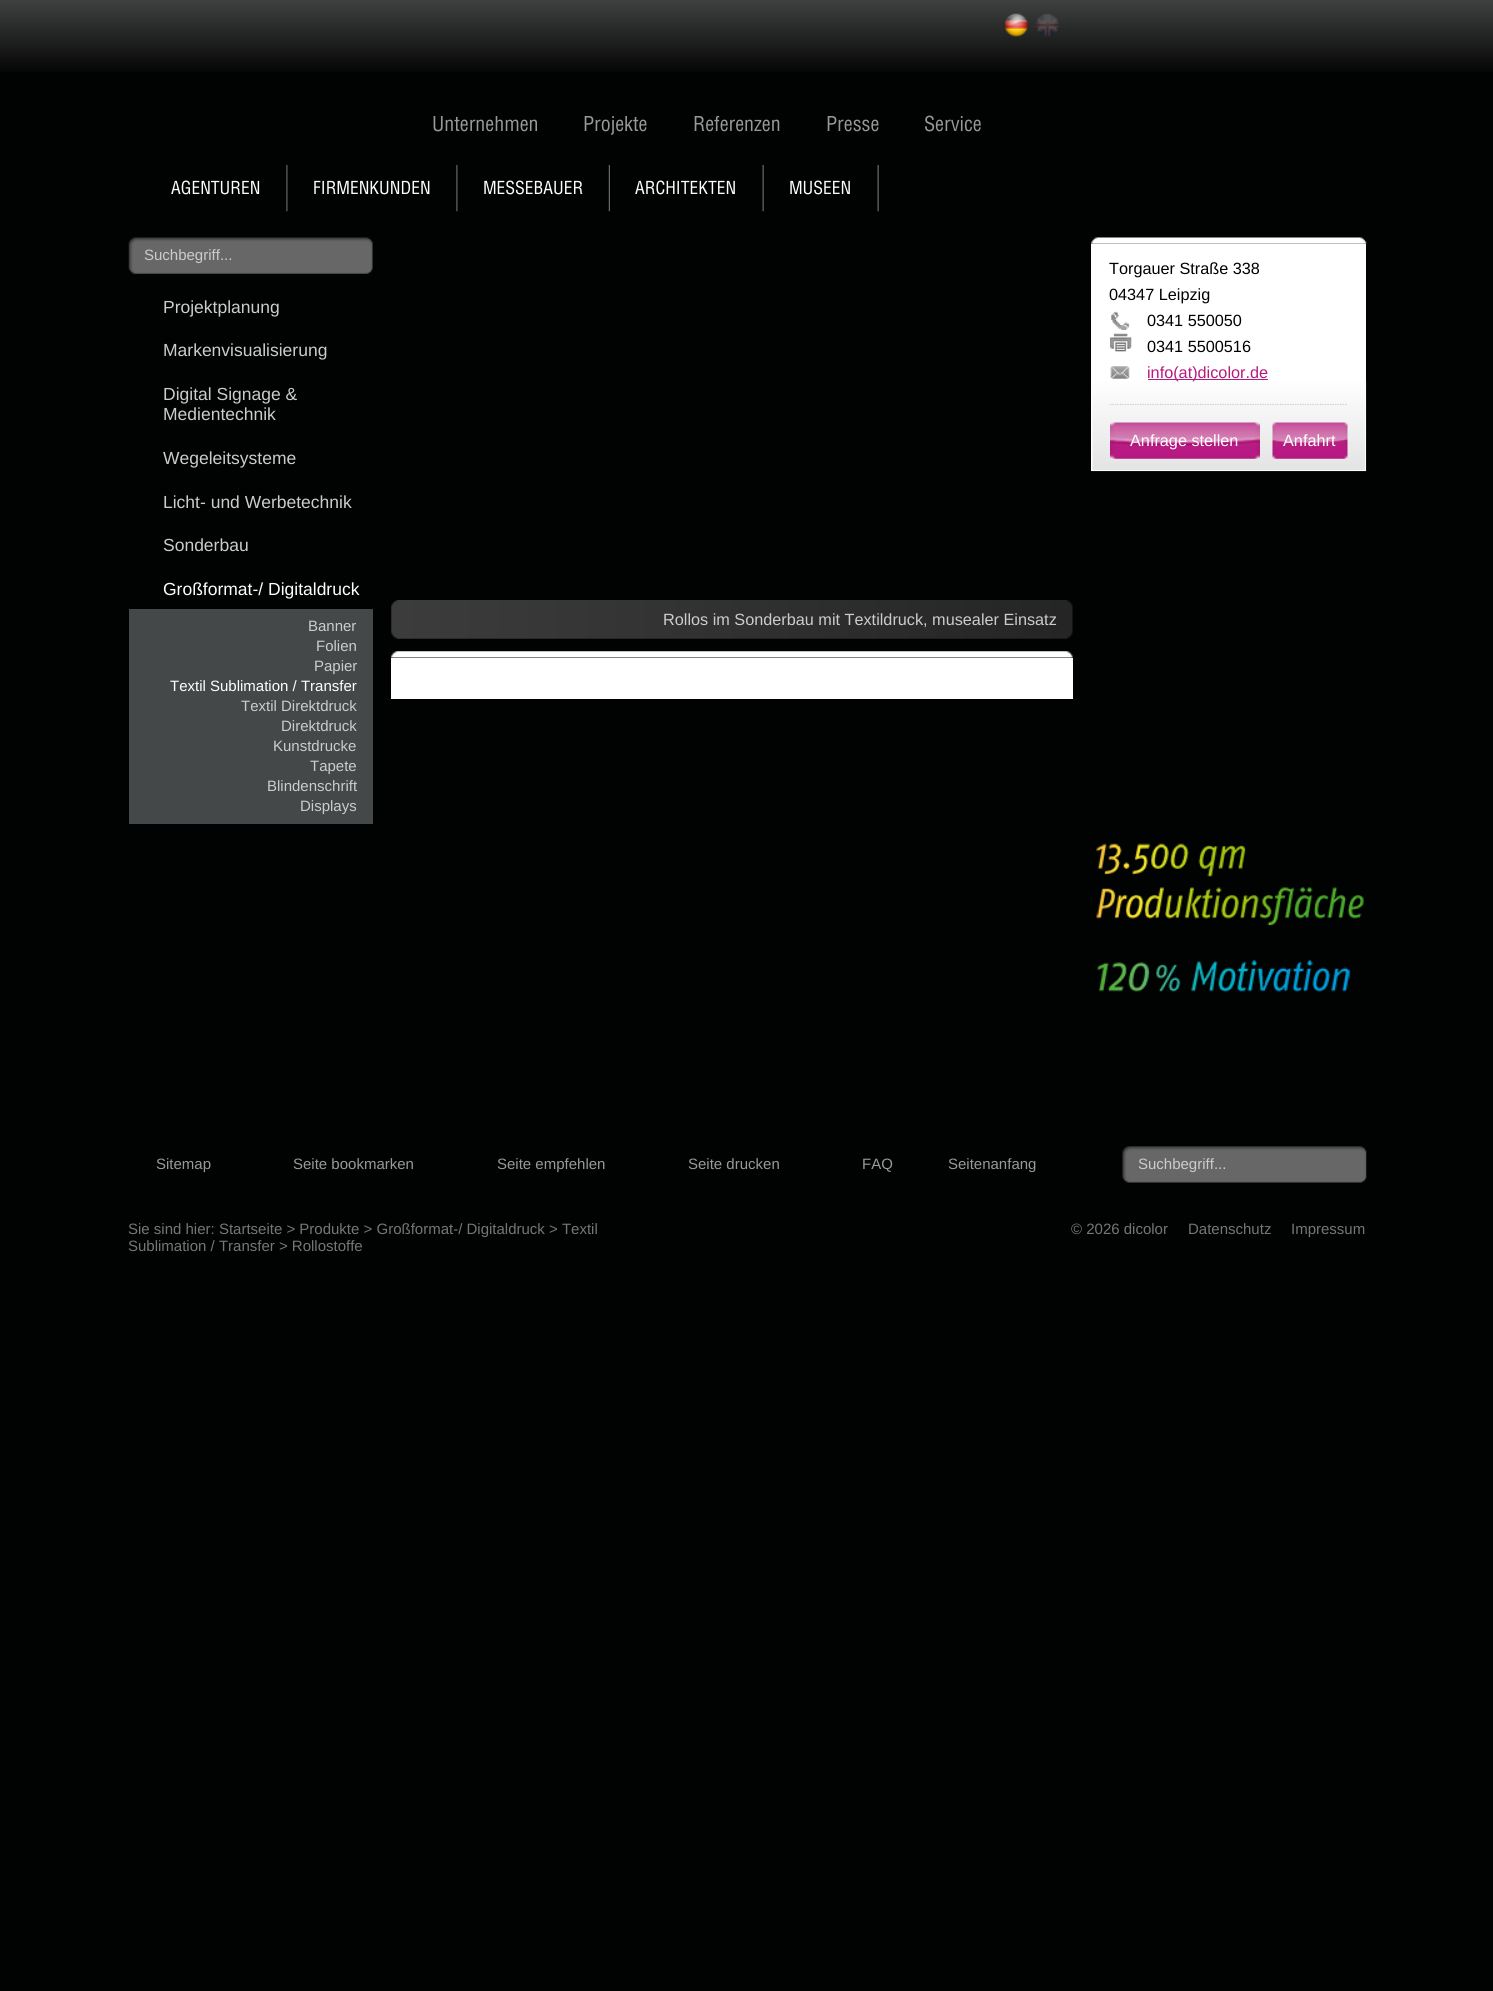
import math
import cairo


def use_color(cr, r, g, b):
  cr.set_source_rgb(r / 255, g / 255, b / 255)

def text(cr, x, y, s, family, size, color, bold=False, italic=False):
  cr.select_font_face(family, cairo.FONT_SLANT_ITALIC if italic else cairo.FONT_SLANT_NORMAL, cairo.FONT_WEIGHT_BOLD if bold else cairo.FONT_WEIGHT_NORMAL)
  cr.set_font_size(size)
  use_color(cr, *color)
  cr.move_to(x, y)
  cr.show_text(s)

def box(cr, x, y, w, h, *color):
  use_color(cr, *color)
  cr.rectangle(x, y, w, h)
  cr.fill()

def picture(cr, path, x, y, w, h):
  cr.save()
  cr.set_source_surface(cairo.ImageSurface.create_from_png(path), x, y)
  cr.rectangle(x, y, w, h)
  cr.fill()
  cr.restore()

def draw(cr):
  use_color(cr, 1, 2, 2)
  cr.paint()
  picture(cr, "img_01.png", 0, 0, 1493, 72)
  picture(cr, "img_02.png", 1003, 13, 26, 24)
  picture(cr, "img_03.png", 1036, 13, 23, 24)
  picture(cr, "img_04.png", 286, 165, 2, 47)
  picture(cr, "img_04.png", 456, 165, 2, 47)
  picture(cr, "img_05.png", 608, 165, 2, 47)
  picture(cr, "img_06.png", 762, 165, 2, 47)
  picture(cr, "img_06.png", 877, 165, 2, 47)
  picture(cr, "img_07.png", 128, 237, 245, 37)
  box(cr, 129, 609, 244, 215, 69, 72, 72)
  picture(cr, "img_08.png", 1091, 237, 276, 7)
  box(cr, 1091, 244, 275, 227, 255, 255, 255)
  picture(cr, "img_09.png", 1091, 381, 276, 91)
  picture(cr, "img_10.png", 1110, 311, 20, 19)
  picture(cr, "img_11.png", 1110, 333, 22, 19)
  picture(cr, "img_12.png", 1110, 366, 20, 13)
  box(cr, 1148, 379, 120, 1, 183, 25, 128)
  cr.new_path()
  cr.move_to(1110, 404.5)
  cr.line_to(1347.5, 404.5)
  use_color(cr, 204, 204, 204)
  cr.set_line_width(1.2)
  cr.set_dash([1.25, 1.25])
  cr.stroke()
  picture(cr, "img_13.png", 1110, 422, 150, 37)
  picture(cr, "img_14.png", 1272, 422, 76, 37)
  picture(cr, "img_15.png", 1096, 843, 268, 83)
  picture(cr, "img_16.png", 1097, 959, 254, 33)
  picture(cr, "img_17.png", 391, 600, 682, 39)
  picture(cr, "img_18.png", 391, 651, 682, 7)
  box(cr, 391, 658, 682, 41, 255, 255, 255)
  picture(cr, "img_19.png", 1122, 1146, 245, 37)
  text(cr, 432, 131, "Unternehmen", "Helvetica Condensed", 20, (153, 153, 153))
  text(cr, 583, 131, "Projekte", "Helvetica Condensed", 20, (153, 153, 153))
  text(cr, 693, 131, "Referenzen", "Helvetica Condensed", 20, (153, 153, 153))
  text(cr, 826, 131, "Presse", "Helvetica Condensed", 20, (153, 153, 153))
  text(cr, 924, 131, "Service", "Helvetica Condensed", 20, (153, 153, 153))
  text(cr, 171, 194, "AGENTUREN", "Helvetica Condensed", 17.5, (255, 255, 255))
  text(cr, 313, 194, "FIRMENKUNDEN", "Helvetica Condensed", 17.5, (255, 255, 255))
  text(cr, 483, 194, "MESSEBAUER", "Helvetica Condensed", 17.5, (255, 255, 255))
  text(cr, 635, 194, "ARCHITEKTEN", "Helvetica Condensed", 17.5, (255, 255, 255))
  text(cr, 789, 194, "MUSEEN", "Helvetica Condensed", 17.5, (255, 255, 255))
  text(cr, 144, 260, "Suchbegriff...", "Liberation Sans", 15, (204, 204, 204))
  text(cr, 163, 313, "Projektplanung", "Liberation Sans", 17.5, (204, 204, 204))
  text(cr, 163, 356, "Markenvisualisierung", "Liberation Sans", 17.5, (204, 204, 204))
  text(cr, 163, 400, "Digital Signage &", "Liberation Sans", 17.5, (204, 204, 204))
  text(cr, 163, 420, "Medientechnik", "Liberation Sans", 17.5, (204, 204, 204))
  text(cr, 163, 464, "Wegeleitsysteme", "Liberation Sans", 17.5, (204, 204, 204))
  text(cr, 163, 508, "Licht- und Werbetechnik", "Liberation Sans", 17.5, (204, 204, 204))
  text(cr, 163, 551, "Sonderbau", "Liberation Sans", 17.5, (204, 204, 204))
  text(cr, 163, 595, "Großformat-/ Digitaldruck", "Liberation Sans", 17.5, (255, 255, 255))
  text(cr, 308, 631, "Banner", "Liberation Sans", 15, (204, 204, 204))
  text(cr, 316, 651, "Folien", "Liberation Sans", 15, (204, 204, 204))
  text(cr, 314, 671, "Papier", "Liberation Sans", 15, (204, 204, 204))
  text(cr, 170, 691, "Textil Sublimation / Transfer", "Liberation Sans", 15, (255, 255, 255))
  text(cr, 241, 711, "Textil Direktdruck", "Liberation Sans", 15, (204, 204, 204))
  text(cr, 281, 731, "Direktdruck", "Liberation Sans", 15, (204, 204, 204))
  text(cr, 273, 751, "Kunstdrucke", "Liberation Sans", 15, (204, 204, 204))
  text(cr, 310, 771, "Tapete", "Liberation Sans", 15, (204, 204, 204))
  text(cr, 267, 791, "Blindenschrift", "Liberation Sans", 15, (204, 204, 204))
  text(cr, 300, 811, "Displays", "Liberation Sans", 15, (204, 204, 204))
  text(cr, 1109, 274, "Torgauer Straße 338", "Liberation Sans", 16.25, (0, 0, 0))
  text(cr, 1109, 300, "04347 Leipzig", "Liberation Sans", 16.25, (0, 0, 0))
  text(cr, 1147, 326, "0341 550050", "Liberation Sans", 16.25, (0, 0, 0))
  text(cr, 1147, 352, "0341 5500516", "Liberation Sans", 16.25, (0, 0, 0))
  text(cr, 1147, 378, "info(at)dicolor.de", "Liberation Sans", 16.25, (183, 25, 128))
  text(cr, 1130, 446, "Anfrage stellen", "Liberation Sans", 16.25, (255, 255, 255))
  text(cr, 1283, 446, "Anfahrt", "Liberation Sans", 16.25, (255, 255, 255))
  text(cr, 663, 625, "Rollos im Sonderbau mit Textildruck, musealer Einsatz", "Liberation Sans", 16.25, (204, 204, 204))
  text(cr, 156, 1169, "Sitemap", "Liberation Sans", 15, (153, 153, 153))
  text(cr, 293, 1169, "Seite bookmarken", "Liberation Sans", 15, (153, 153, 153))
  text(cr, 497, 1169, "Seite empfehlen", "Liberation Sans", 15, (153, 153, 153))
  text(cr, 688, 1169, "Seite drucken", "Liberation Sans", 15, (153, 153, 153))
  text(cr, 862, 1169, "FAQ", "Liberation Sans", 15, (153, 153, 153))
  text(cr, 948, 1169, "Seitenanfang", "Liberation Sans", 15, (153, 153, 153))
  text(cr, 1138, 1169, "Suchbegriff...", "Liberation Sans", 15, (204, 204, 204))
  text(cr, 128, 1234, "Sie sind hier: Startseite > Produkte > Großformat-/ Digitaldruck > Textil", "Liberation Sans", 15, (118, 118, 118))
  text(cr, 128, 1251, "Sublimation / Transfer > Rollostoffe", "Liberation Sans", 15, (118, 118, 118))
  text(cr, 1071, 1234, "© 2026 dicolor", "Liberation Sans", 15, (118, 118, 118))
  text(cr, 1188, 1234, "Datenschutz", "Liberation Sans", 15, (118, 118, 118))
  text(cr, 1291, 1234, "Impressum", "Liberation Sans", 15, (118, 118, 118))


surface = cairo.ImageSurface(cairo.FORMAT_RGB24, 1493, 1991)
cr = cairo.Context(surface)
options = cairo.FontOptions()
options.set_hint_metrics(cairo.HINT_METRICS_OFF)
options.set_hint_style(cairo.HINT_STYLE_NONE)
cr.set_font_options(options)
cr.set_miter_limit(4)
draw(cr)
surface.write_to_png("out.png")
